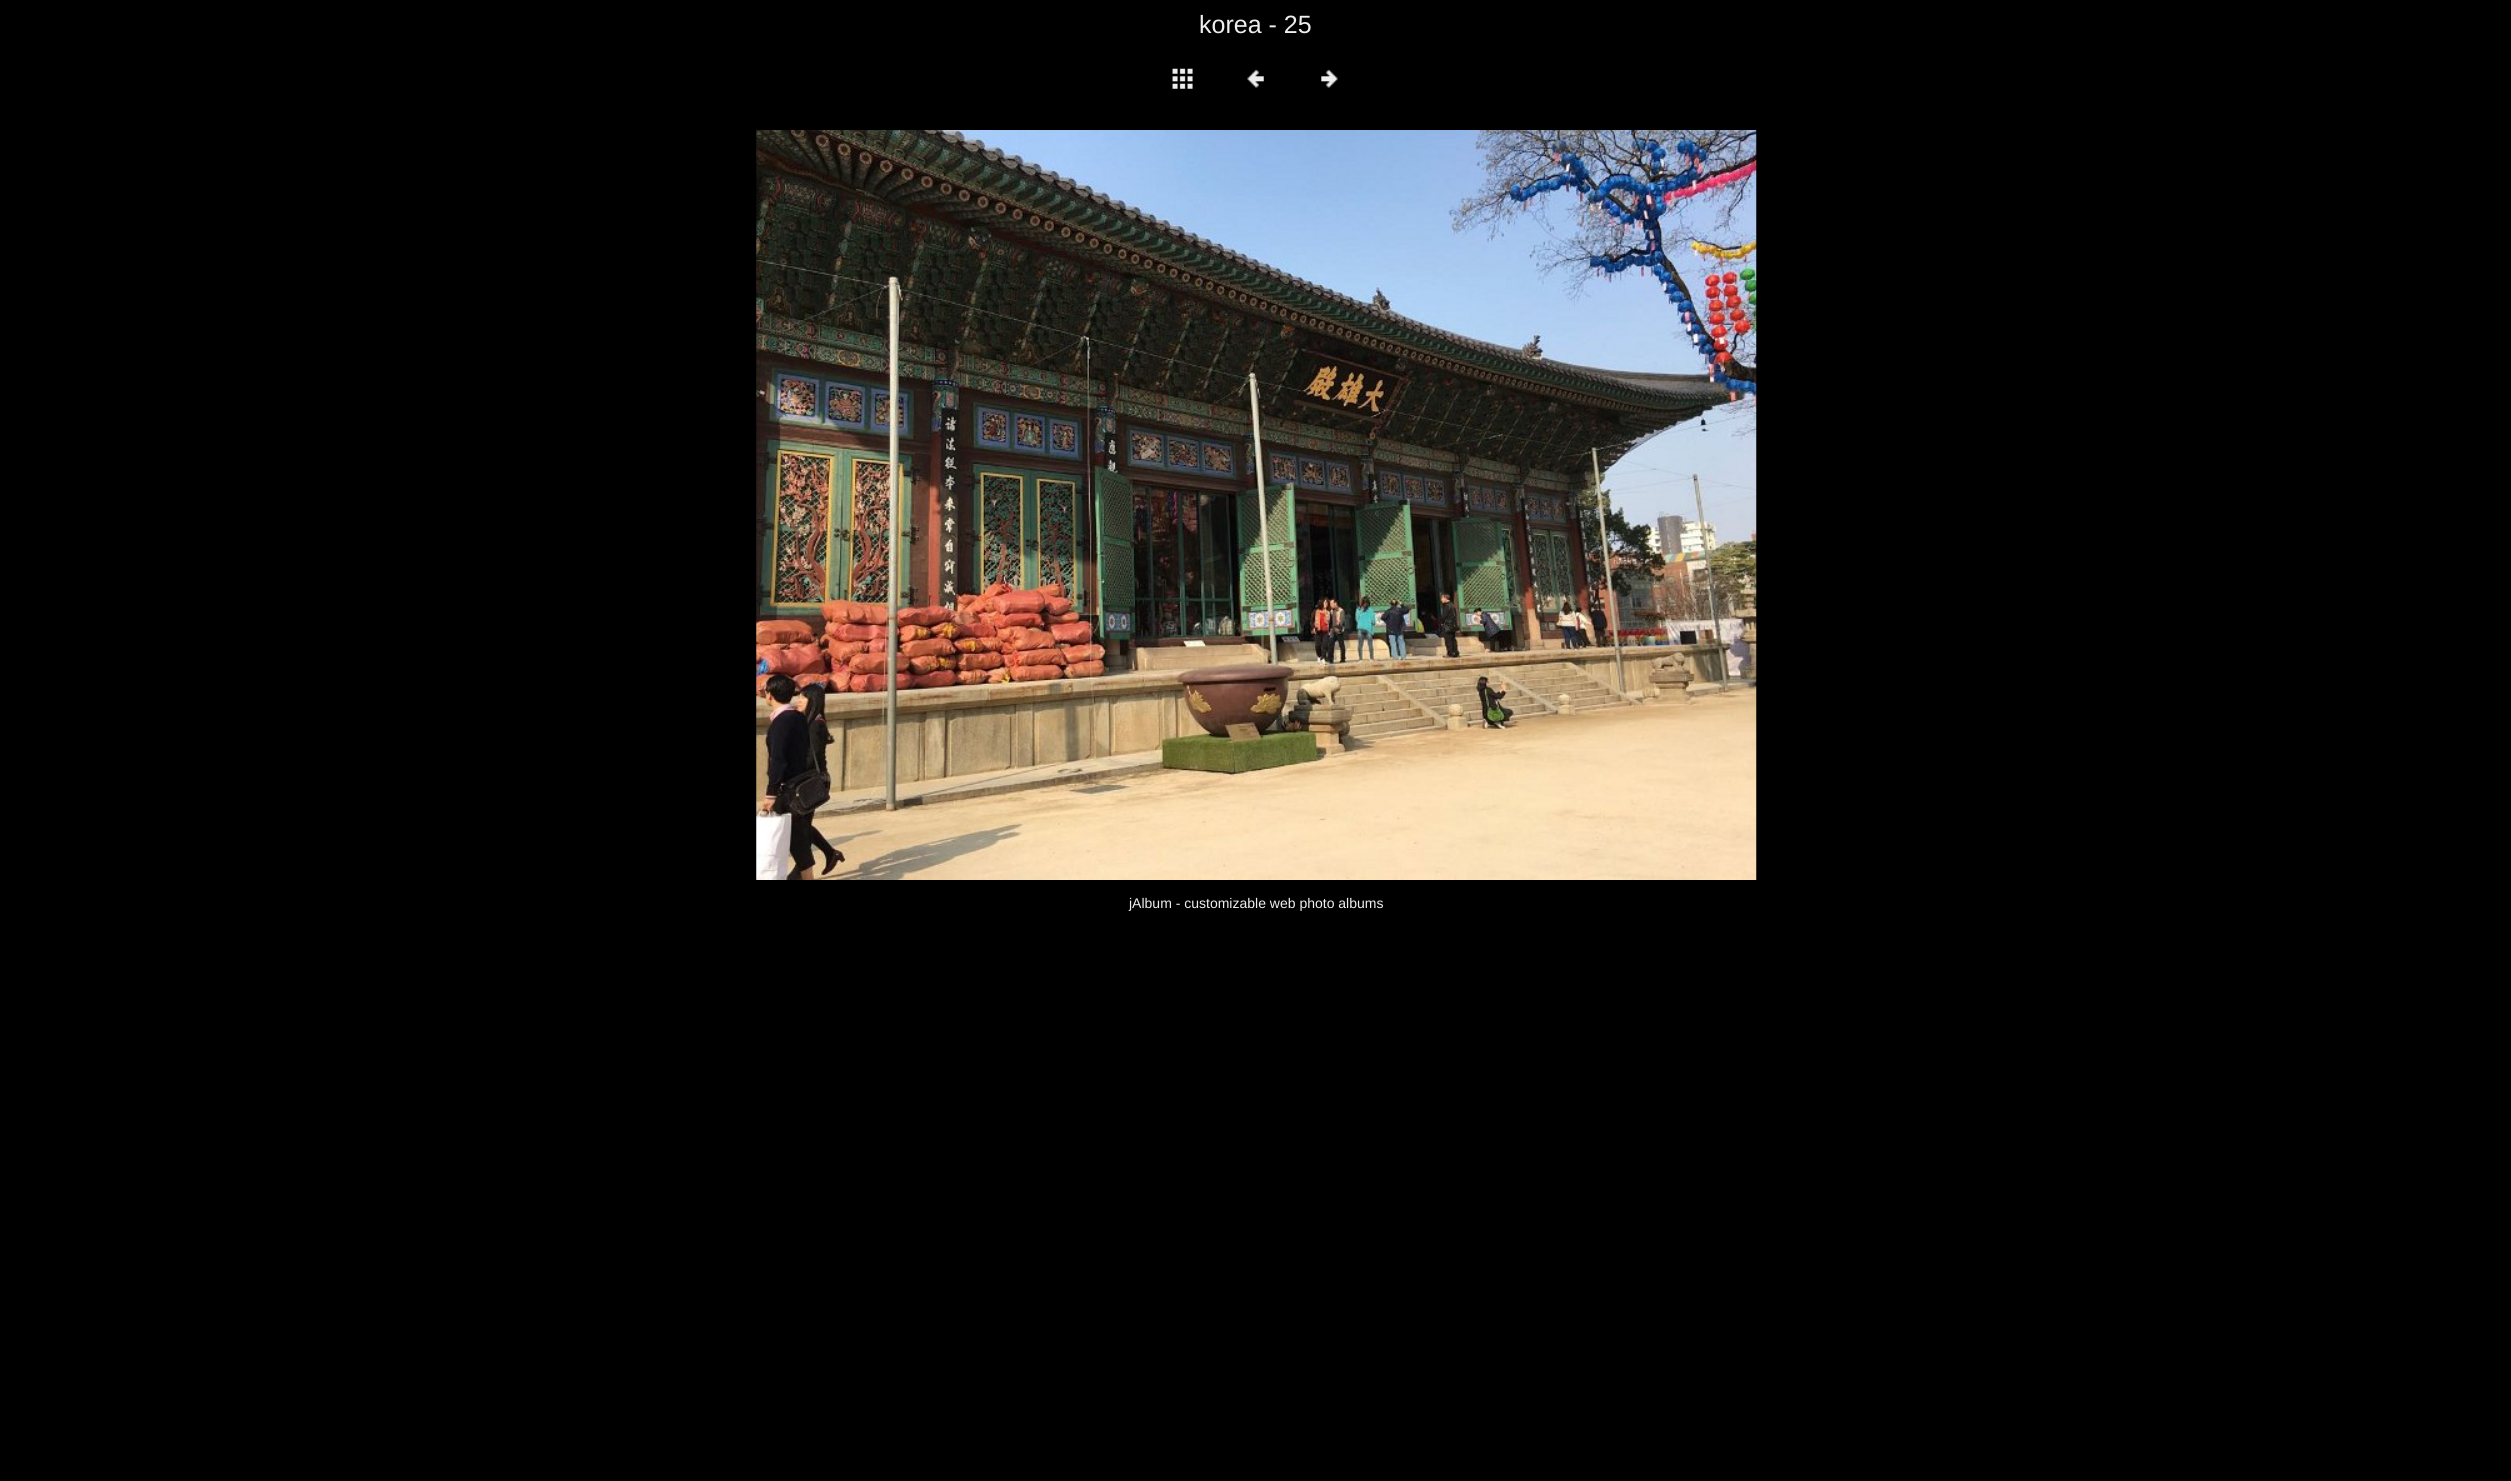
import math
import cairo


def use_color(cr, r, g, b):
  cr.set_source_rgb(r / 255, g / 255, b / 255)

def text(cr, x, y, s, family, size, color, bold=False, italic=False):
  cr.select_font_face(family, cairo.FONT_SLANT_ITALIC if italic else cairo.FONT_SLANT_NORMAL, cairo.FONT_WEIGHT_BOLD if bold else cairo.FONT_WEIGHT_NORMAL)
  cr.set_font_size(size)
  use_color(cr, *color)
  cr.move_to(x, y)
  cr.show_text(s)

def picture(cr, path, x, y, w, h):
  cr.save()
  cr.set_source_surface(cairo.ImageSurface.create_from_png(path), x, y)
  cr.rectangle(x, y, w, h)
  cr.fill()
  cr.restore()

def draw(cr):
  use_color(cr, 0, 0, 0)
  cr.paint()
  picture(cr, "img_01.png", 1172, 68, 21, 21)
  picture(cr, "img_02.png", 1247, 69, 17, 19)
  picture(cr, "img_03.png", 1321, 69, 17, 19)
  picture(cr, "img_04.png", 756, 130, 1001, 750)
  text(cr, 1199, 33, "korea - 25", "Liberation Sans", 25, (238, 238, 238))
  text(cr, 1129, 908, "jAlbum - customizable web photo albums", "Liberation Sans", 14, (238, 238, 238))


surface = cairo.ImageSurface(cairo.FORMAT_RGB24, 2511, 1481)
cr = cairo.Context(surface)
options = cairo.FontOptions()
options.set_hint_metrics(cairo.HINT_METRICS_OFF)
options.set_hint_style(cairo.HINT_STYLE_NONE)
cr.set_font_options(options)
cr.set_miter_limit(4)
draw(cr)
surface.write_to_png("out.png")
